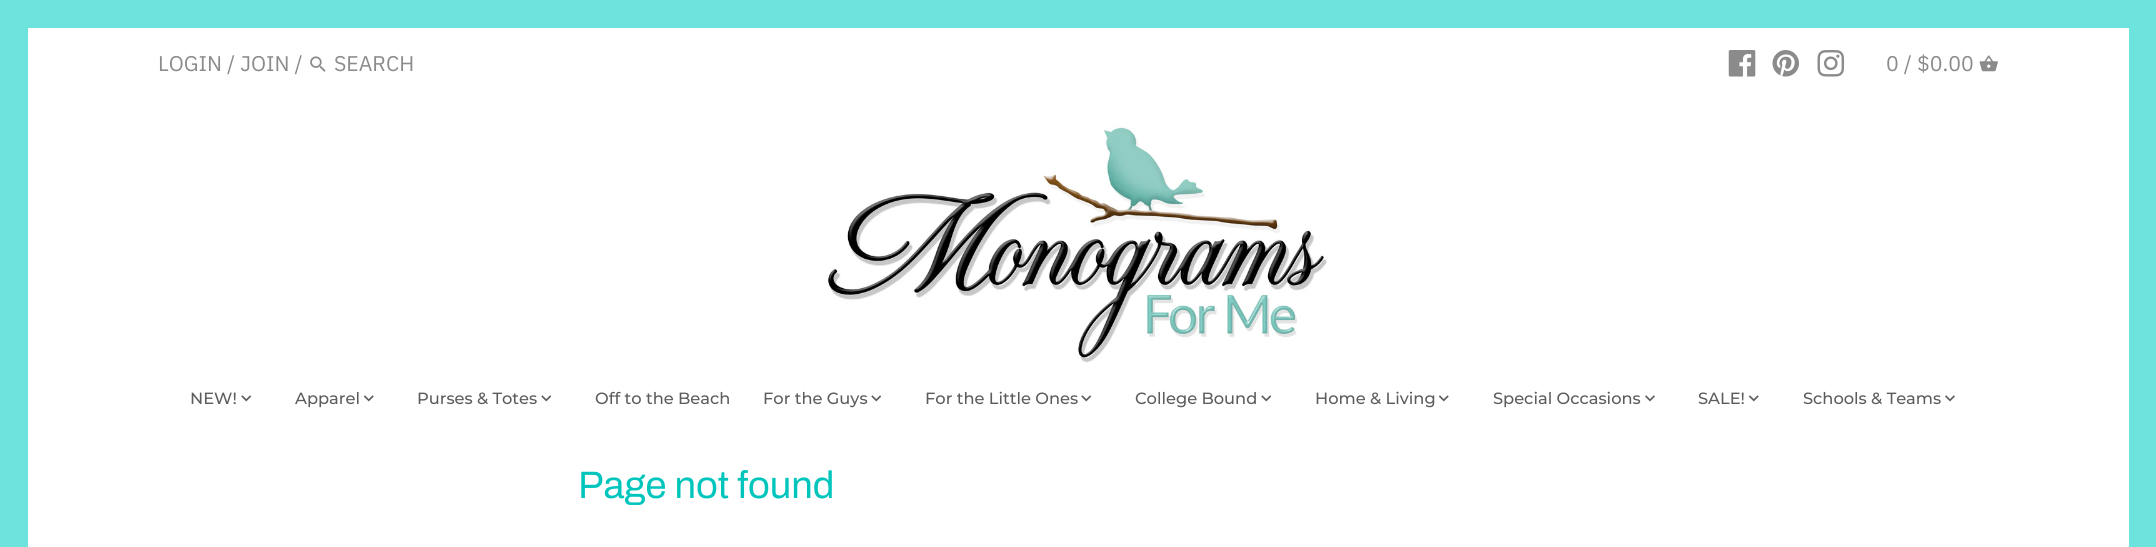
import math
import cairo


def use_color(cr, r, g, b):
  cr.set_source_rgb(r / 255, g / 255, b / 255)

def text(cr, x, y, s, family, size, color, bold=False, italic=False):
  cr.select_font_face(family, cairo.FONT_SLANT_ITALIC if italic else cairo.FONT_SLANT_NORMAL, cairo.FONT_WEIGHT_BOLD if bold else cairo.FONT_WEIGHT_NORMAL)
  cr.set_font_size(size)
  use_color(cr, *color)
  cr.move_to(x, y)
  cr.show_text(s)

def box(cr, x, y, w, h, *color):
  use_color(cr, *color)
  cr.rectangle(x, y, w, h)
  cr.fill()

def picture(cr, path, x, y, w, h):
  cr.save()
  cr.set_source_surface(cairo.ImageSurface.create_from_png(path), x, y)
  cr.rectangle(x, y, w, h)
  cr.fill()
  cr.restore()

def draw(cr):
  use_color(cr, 255, 255, 255)
  cr.paint()
  cr.rectangle(14, 14, 2128, 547)
  use_color(cr, 109, 227, 222)
  cr.set_line_width(28)
  cr.stroke()
  box(cr, 2128, 28, 1, 519, 255, 255, 255)
  picture(cr, "img_01.png", 310, 56, 16, 16)
  picture(cr, "img_02.png", 1728, 50, 28, 27)
  picture(cr, "img_03.png", 1772, 50, 27, 27)
  picture(cr, "img_04.png", 1817, 50, 28, 27)
  picture(cr, "img_05.png", 1979, 55, 19, 17)
  picture(cr, "img_06.png", 828, 126, 499, 237)
  picture(cr, "img_07.png", 241, 395, 11, 7)
  picture(cr, "img_08.png", 363, 395, 11, 7)
  picture(cr, "img_07.png", 541, 395, 11, 7)
  picture(cr, "img_07.png", 871, 395, 11, 7)
  picture(cr, "img_07.png", 1081, 395, 11, 7)
  picture(cr, "img_07.png", 1261, 395, 11, 7)
  picture(cr, "img_08.png", 1438, 395, 11, 7)
  picture(cr, "img_09.png", 1645, 395, 10, 7)
  picture(cr, "img_08.png", 1748, 395, 11, 7)
  picture(cr, "img_09.png", 1945, 395, 10, 7)
  text(cr, 158, 71, "LOGIN / JOIN /", "IBM Plex Sans", 21.25, (139, 139, 139))
  text(cr, 334, 71, "SEARCH", "IBM Plex Sans", 21.25, (139, 139, 139))
  text(cr, 1886, 71, "0 / $0.00", "IBM Plex Sans", 21.25, (139, 139, 139))
  text(cr, 190, 404, "NEW!", "Montserrat Medium", 16.25, (92, 92, 95))
  text(cr, 295, 404, "Apparel", "Montserrat Medium", 16.25, (92, 92, 95))
  text(cr, 417, 404, "Purses & Totes", "Montserrat Medium", 16.25, (92, 92, 95))
  text(cr, 595, 404, "Off to the Beach", "Montserrat Medium", 16.25, (92, 92, 95))
  text(cr, 763, 404, "For the Guys", "Montserrat Medium", 16.25, (92, 92, 95))
  text(cr, 925, 404, "For the Little Ones", "Montserrat Medium", 16.25, (92, 92, 95))
  text(cr, 1135, 404, "College Bound", "Montserrat Medium", 16.25, (92, 92, 95))
  text(cr, 1315, 404, "Home & Living", "Montserrat Medium", 16.25, (92, 92, 95))
  text(cr, 1493, 404, "Special Occasions", "Montserrat Medium", 16.25, (92, 92, 95))
  text(cr, 1698, 404, "SALE!", "Montserrat Medium", 16.25, (92, 92, 95))
  text(cr, 1803, 404, "Schools & Teams", "Montserrat Medium", 16.25, (92, 92, 95))
  text(cr, 578, 498, "Page not found", "Archivo", 38.25, (0, 197, 189))


surface = cairo.ImageSurface(cairo.FORMAT_RGB24, 2156, 547)
cr = cairo.Context(surface)
options = cairo.FontOptions()
options.set_hint_metrics(cairo.HINT_METRICS_OFF)
options.set_hint_style(cairo.HINT_STYLE_NONE)
cr.set_font_options(options)
cr.set_miter_limit(4)
draw(cr)
surface.write_to_png("out.png")
